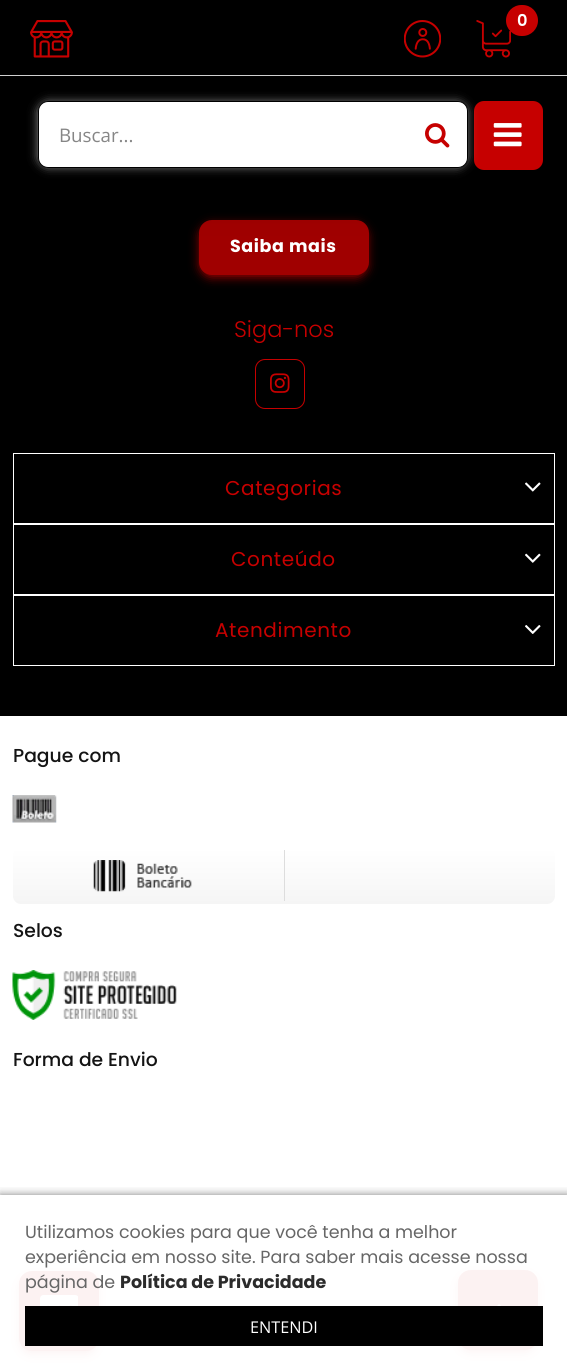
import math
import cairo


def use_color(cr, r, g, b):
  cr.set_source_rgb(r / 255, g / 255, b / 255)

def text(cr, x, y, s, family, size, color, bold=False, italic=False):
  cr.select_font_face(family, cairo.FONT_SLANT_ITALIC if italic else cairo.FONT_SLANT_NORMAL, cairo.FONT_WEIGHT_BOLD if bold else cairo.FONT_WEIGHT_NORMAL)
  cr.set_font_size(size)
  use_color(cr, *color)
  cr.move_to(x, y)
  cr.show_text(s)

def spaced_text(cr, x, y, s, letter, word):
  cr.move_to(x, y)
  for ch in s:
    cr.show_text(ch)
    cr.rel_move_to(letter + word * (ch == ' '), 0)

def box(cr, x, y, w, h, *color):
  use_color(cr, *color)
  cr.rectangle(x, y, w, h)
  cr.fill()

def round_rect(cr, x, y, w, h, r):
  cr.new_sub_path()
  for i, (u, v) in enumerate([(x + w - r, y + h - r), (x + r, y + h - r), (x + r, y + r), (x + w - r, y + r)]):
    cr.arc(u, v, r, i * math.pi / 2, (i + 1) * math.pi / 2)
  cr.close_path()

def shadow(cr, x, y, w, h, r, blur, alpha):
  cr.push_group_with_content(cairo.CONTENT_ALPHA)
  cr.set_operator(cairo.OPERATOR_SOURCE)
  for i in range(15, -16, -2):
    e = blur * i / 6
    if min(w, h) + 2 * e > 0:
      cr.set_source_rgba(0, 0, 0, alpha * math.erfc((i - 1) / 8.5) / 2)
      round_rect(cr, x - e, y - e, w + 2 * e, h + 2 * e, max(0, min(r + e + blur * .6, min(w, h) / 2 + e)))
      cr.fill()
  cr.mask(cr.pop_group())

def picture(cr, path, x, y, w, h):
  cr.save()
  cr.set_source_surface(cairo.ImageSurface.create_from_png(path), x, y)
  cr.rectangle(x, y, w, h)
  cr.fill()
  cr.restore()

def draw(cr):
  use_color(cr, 255, 255, 255)
  cr.paint()
  box(cr, 0, 195, 567, 521, 0, 0, 0)
  use_color(cr, 198, 0, 0)
  shadow(cr, 201, 226, 165, 50, 10, 5.5, 1)
  use_color(cr, 160, 0, 0)
  round_rect(cr, 200.5, 221.5, 167, 52, 11.5)
  cr.fill_preserve()
  cr.set_line_width(3)
  cr.stroke()
  use_color(cr, 0, 0, 0)
  shadow(cr, 0, 0, 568, 195, 0, 19, 0.2)
  box(cr, 0, 0, 567, 195, 0, 0, 0)
  box(cr, 0, 75, 567, 1, 208, 208, 208)
  picture(cr, "img_01.png", 30, 20, 43, 38)
  picture(cr, "img_02.png", 404, 20, 37, 38)
  use_color(cr, 198, 0, 0)
  round_rect(cr, 506, 5, 32, 31, 15.5)
  cr.fill()
  picture(cr, "img_03.png", 476, 20, 35, 38)
  round_rect(cr, 474, 101, 69, 69, 10)
  cr.fill()
  use_color(cr, 204, 204, 204)
  shadow(cr, 40, 104, 425, 61, 8, 5.5, 1)
  use_color(cr, 255, 255, 255)
  round_rect(cr, 38.5, 101.5, 429, 66, 9.5)
  cr.fill_preserve()
  use_color(cr, 0, 0, 0)
  cr.set_line_width(1)
  cr.stroke()
  picture(cr, "img_04.png", 425, 123, 25, 25)
  picture(cr, "img_05.png", 493, 123, 29, 24)
  round_rect(cr, 255.5, 359.5, 49, 49, 9.5)
  use_color(cr, 198, 0, 0)
  cr.stroke()
  picture(cr, "img_06.png", 270, 373, 20, 20)
  cr.rectangle(13.5, 453.5, 541, 70)
  use_color(cr, 255, 255, 255)
  cr.stroke()
  picture(cr, "img_07.png", 525, 482, 16, 10)
  cr.rectangle(13.5, 524.5, 541, 70)
  cr.stroke()
  picture(cr, "img_08.png", 525, 553, 16, 10)
  cr.rectangle(13.5, 595.5, 541, 70)
  cr.stroke()
  picture(cr, "img_09.png", 525, 625, 16, 9)
  picture(cr, "img_10.png", 12, 795, 45, 28)
  gradient = cairo.LinearGradient(284, 848, 284, 904)
  gradient.add_color_stop_rgba(0, 1, 1, 1, 1)
  gradient.add_color_stop_rgba(1, 0.961, 0.961, 0.961, 1)
  cr.set_source(gradient)
  round_rect(cr, 13, 848, 542, 56, 8)
  cr.fill()
  picture(cr, "img_11.png", 93, 860, 99, 32)
  box(cr, 284, 850, 1, 51, 221, 221, 221)
  picture(cr, "img_12.png", 12, 970, 165, 50)
  use_color(cr, 252, 242, 242)
  shadow(cr, 21, 1278, 75, 75, 10, 5.5, 1)
  use_color(cr, 252, 242, 242)
  round_rect(cr, 19, 1271, 80, 80, 13)
  cr.fill()
  picture(cr, "img_13.png", 40, 1295, 38, 11)
  use_color(cr, 252, 242, 242)
  shadow(cr, 460, 1276, 75, 75, 10, 5.5, 1)
  use_color(cr, 252, 242, 242)
  round_rect(cr, 458, 1270, 80, 80, 13)
  cr.fill()
  picture(cr, "img_14.png", 497, 1304, 4, 2)
  cr.save()
  cr.rectangle(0, 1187, 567, 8)
  cr.clip()
  use_color(cr, 0, 0, 0)
  shadow(cr, 0, 1195, 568, 175, 0, 4.5, 0.5)
  cr.restore()
  box(cr, 25, 1306, 518, 40, 0, 0, 0)
  text(cr, 517, 26, "0", "Poppins SemiBold", 16.25, (255, 255, 255))
  text(cr, 59, 142, "Buscar...", "Open Sans", 18.75, (134, 134, 134))
  cr.select_font_face("Poppins", cairo.FONT_SLANT_NORMAL, cairo.FONT_WEIGHT_BOLD)
  cr.set_font_size(17.5)
  use_color(cr, 255, 255, 255)
  spaced_text(cr, 230, 252, "Saiba mais", 0.6, 0)
  text(cr, 234, 337, "Siga-nos", "Poppins Light", 22.5, (198, 0, 0))
  cr.select_font_face("Poppins")
  cr.set_font_size(20)
  spaced_text(cr, 225, 495, "Categorias", 0.6, 0)
  spaced_text(cr, 231, 566, "Conteúdo", 0.6, 0)
  spaced_text(cr, 215, 637, "Atendimento", 0.6, 0)
  text(cr, 13, 762, "Pague com", "Poppins Medium", 18.75, (20, 20, 20))
  text(cr, 13, 937, "Selos", "Poppins Medium", 18.75, (20, 20, 20))
  text(cr, 13, 1066, "Forma de Envio", "Poppins Medium", 18.75, (20, 20, 20))
  text(cr, 25, 1238, "Utilizamos cookies para que você tenha a melhor", "Poppins", 17.5, (102, 102, 102))
  text(cr, 25, 1263, "experiência em nosso site. Para saber mais acesse nossa", "Poppins", 17.5, (102, 102, 102))
  text(cr, 25, 1288, "página de", "Poppins", 17.5, (102, 102, 102))
  text(cr, 120, 1288, "Política de Privacidade", "Poppins", 17.5, (43, 43, 43), bold=True)
  text(cr, 250, 1333, "ENTENDI", "Open Sans", 16.25, (255, 255, 255))


surface = cairo.ImageSurface(cairo.FORMAT_RGB24, 567, 1370)
cr = cairo.Context(surface)
options = cairo.FontOptions()
options.set_hint_metrics(cairo.HINT_METRICS_OFF)
options.set_hint_style(cairo.HINT_STYLE_NONE)
cr.set_font_options(options)
cr.set_miter_limit(4)
draw(cr)
surface.write_to_png("out.png")
